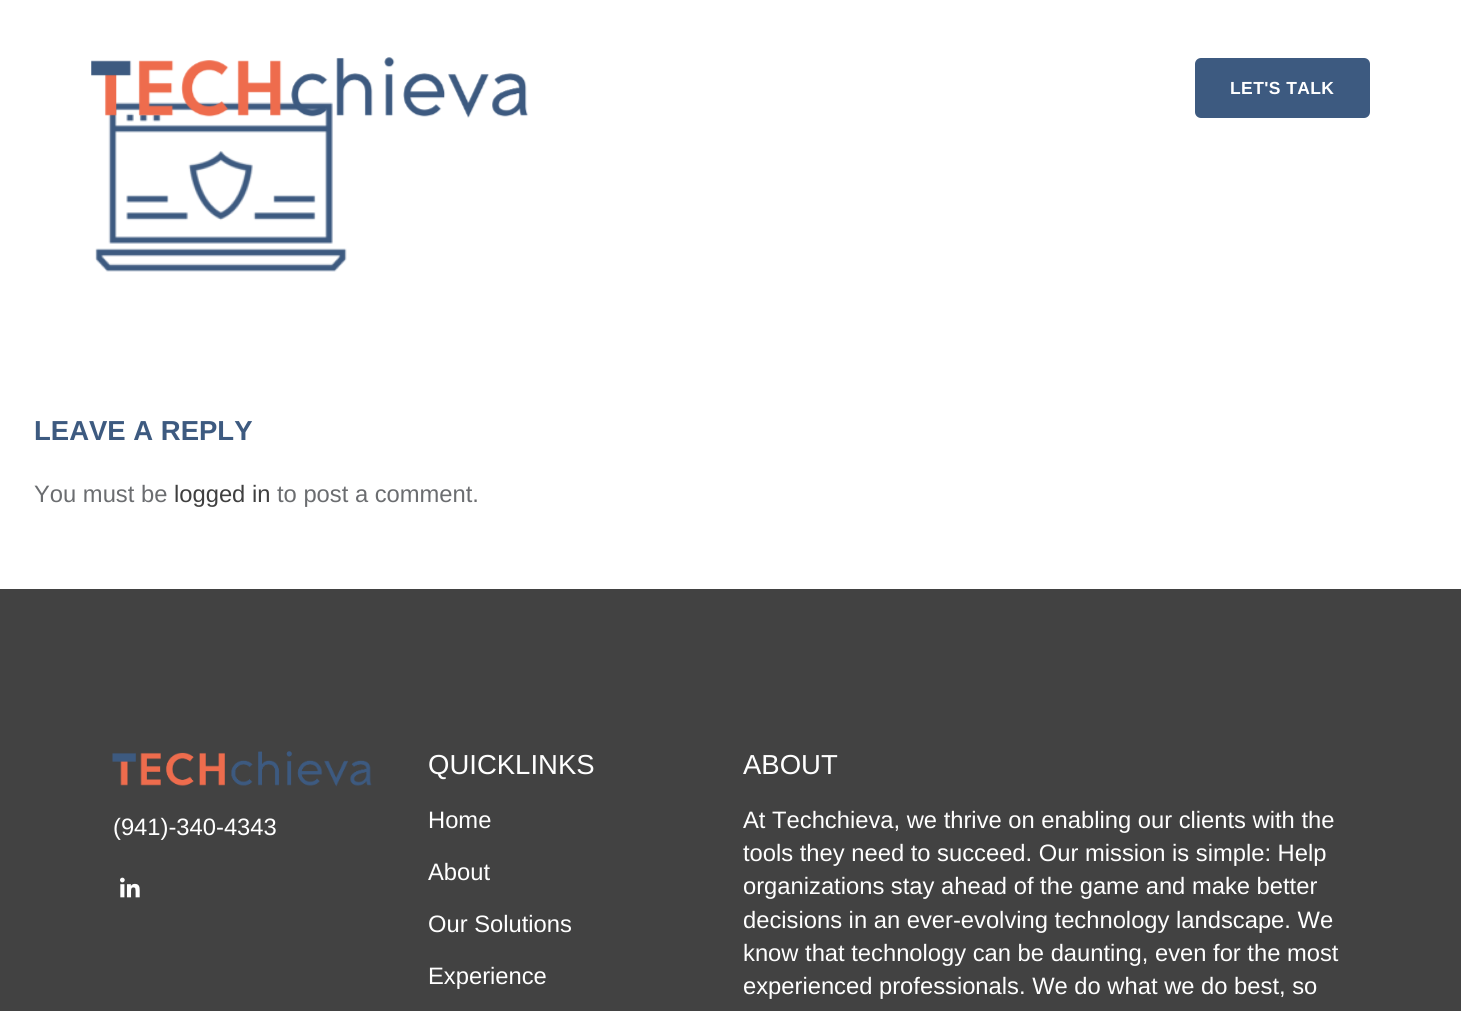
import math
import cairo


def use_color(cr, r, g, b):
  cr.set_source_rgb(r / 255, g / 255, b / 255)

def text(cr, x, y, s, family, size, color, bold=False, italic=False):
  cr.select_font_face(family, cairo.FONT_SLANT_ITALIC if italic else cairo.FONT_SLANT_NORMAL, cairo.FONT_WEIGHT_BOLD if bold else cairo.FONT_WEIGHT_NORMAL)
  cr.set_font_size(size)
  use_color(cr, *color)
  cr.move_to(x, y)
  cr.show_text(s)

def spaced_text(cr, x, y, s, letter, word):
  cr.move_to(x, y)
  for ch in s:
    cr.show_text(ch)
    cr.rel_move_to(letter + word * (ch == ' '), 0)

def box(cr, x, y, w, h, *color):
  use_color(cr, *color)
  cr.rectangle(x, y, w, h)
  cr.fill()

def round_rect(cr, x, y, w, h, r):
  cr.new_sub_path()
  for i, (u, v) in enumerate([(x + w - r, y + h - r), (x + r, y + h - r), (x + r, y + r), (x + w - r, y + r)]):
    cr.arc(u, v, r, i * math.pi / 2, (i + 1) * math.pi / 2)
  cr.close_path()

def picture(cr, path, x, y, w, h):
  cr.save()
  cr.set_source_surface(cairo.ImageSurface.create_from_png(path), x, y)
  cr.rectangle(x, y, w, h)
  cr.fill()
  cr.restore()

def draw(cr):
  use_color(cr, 255, 255, 255)
  cr.paint()
  picture(cr, "img_02.png", 95, 102, 252, 170)
  picture(cr, "img_01.png", 91, 57, 438, 61)
  use_color(cr, 61, 90, 128)
  round_rect(cr, 1195, 58, 175, 60, 6)
  cr.fill()
  box(cr, 0, 589, 1461, 422, 66, 66, 66)
  picture(cr, "img_03.png", 112, 751, 260, 36)
  picture(cr, "img_04.png", 120, 877, 20, 21)
  cr.select_font_face("Liberation Sans", cairo.FONT_SLANT_NORMAL, cairo.FONT_WEIGHT_BOLD)
  cr.set_font_size(17.5)
  use_color(cr, 255, 255, 255)
  spaced_text(cr, 1230, 94, "LET'S TALK", 0.4, 0)
  text(cr, 34, 440, "LEAVE A REPLY", "Liberation Sans", 27.5, (61, 90, 128), bold=True)
  text(cr, 34, 502, "You must be", "Liberation Sans", 23.75, (107, 109, 112))
  text(cr, 174, 502, "logged in", "Liberation Sans", 23.75, (63, 63, 63))
  text(cr, 277, 502, "to post a comment.", "Liberation Sans", 23.75, (107, 109, 112))
  text(cr, 113, 835, "(941)-340-4343", "Liberation Sans", 23.75, (255, 255, 255))
  text(cr, 428, 774, "QUICKLINKS", "Liberation Sans", 27.5, (255, 255, 255))
  text(cr, 428, 828, "Home", "Liberation Sans", 23.75, (255, 255, 255))
  text(cr, 428, 880, "About", "Liberation Sans", 23.75, (255, 255, 255))
  text(cr, 428, 932, "Our Solutions", "Liberation Sans", 23.75, (255, 255, 255))
  text(cr, 428, 984, "Experience", "Liberation Sans", 23.75, (255, 255, 255))
  text(cr, 743, 774, "ABOUT", "Liberation Sans", 27.5, (255, 255, 255))
  text(cr, 743, 828, "At Techchieva, we thrive on enabling our clients with the", "Liberation Sans", 23.75, (255, 255, 255))
  text(cr, 743, 861, "tools they need to succeed. Our mission is simple: Help", "Liberation Sans", 23.75, (255, 255, 255))
  text(cr, 743, 894, "organizations stay ahead of the game and make better", "Liberation Sans", 23.75, (255, 255, 255))
  text(cr, 743, 928, "decisions in an ever-evolving technology landscape. We", "Liberation Sans", 23.75, (255, 255, 255))
  text(cr, 743, 961, "know that technology can be daunting, even for the most", "Liberation Sans", 23.75, (255, 255, 255))
  text(cr, 743, 994, "experienced professionals. We do what we do best, so", "Liberation Sans", 23.75, (255, 255, 255))


surface = cairo.ImageSurface(cairo.FORMAT_RGB24, 1461, 1011)
cr = cairo.Context(surface)
options = cairo.FontOptions()
options.set_hint_metrics(cairo.HINT_METRICS_OFF)
options.set_hint_style(cairo.HINT_STYLE_NONE)
cr.set_font_options(options)
cr.set_miter_limit(4)
draw(cr)
surface.write_to_png("out.png")
